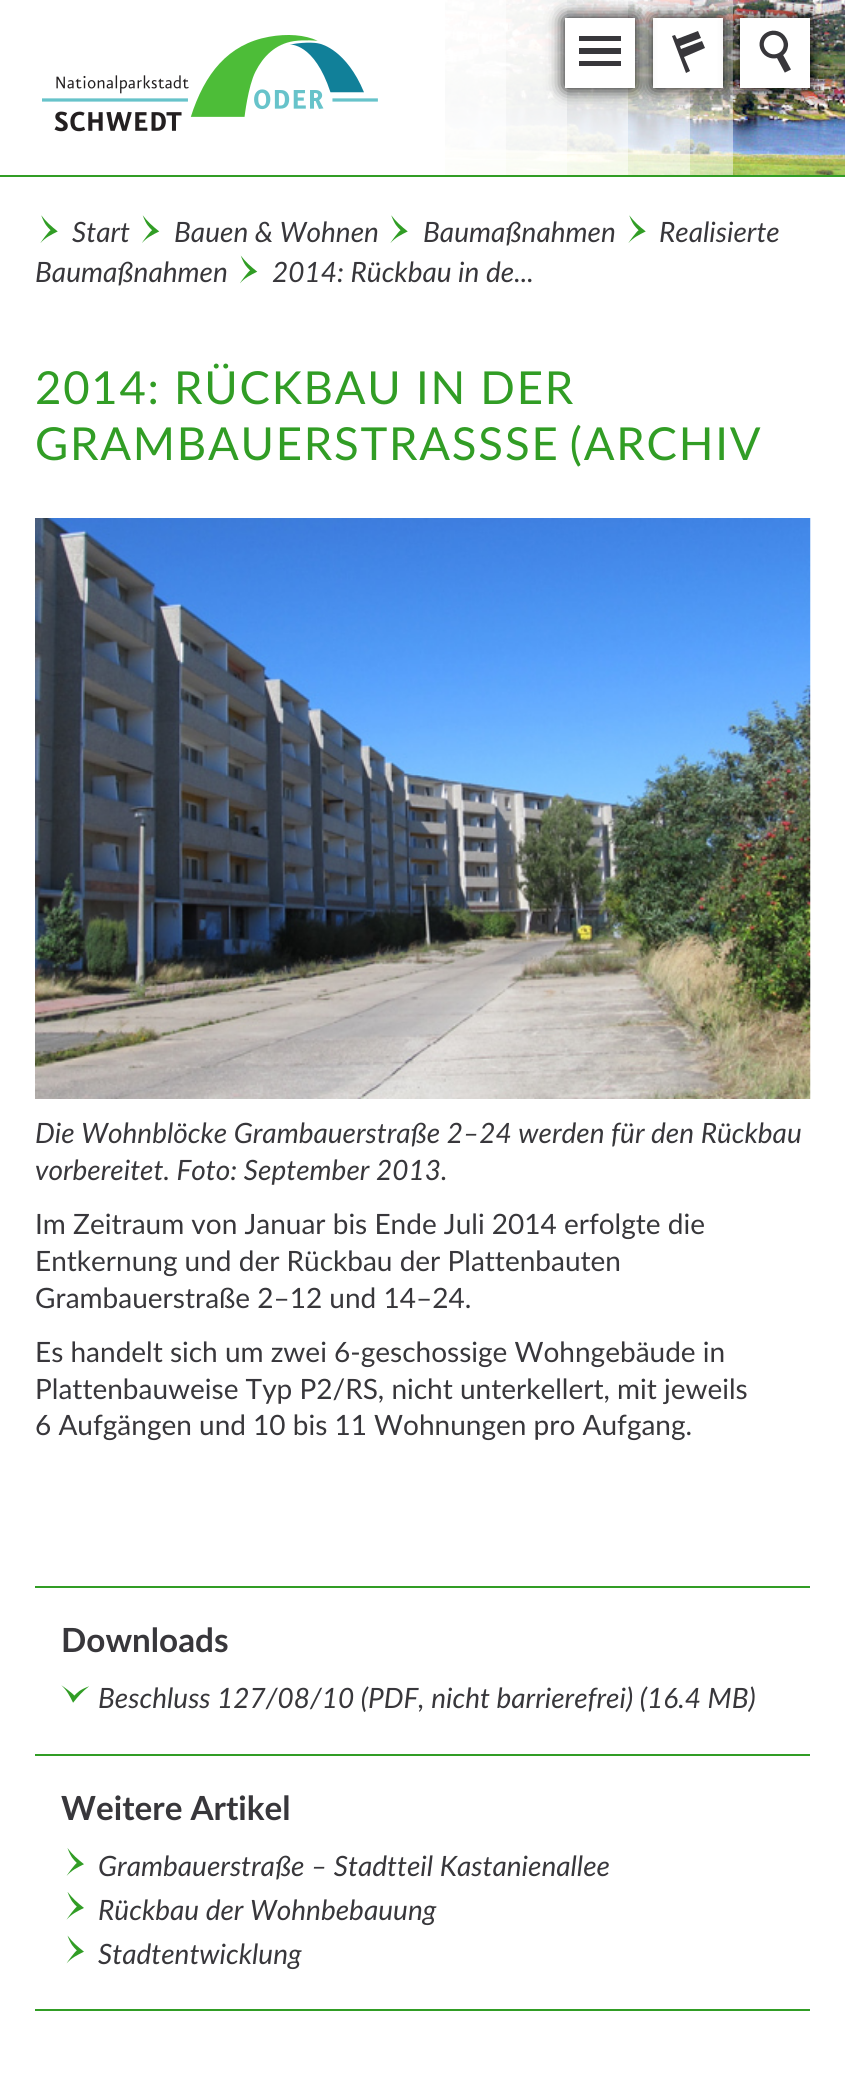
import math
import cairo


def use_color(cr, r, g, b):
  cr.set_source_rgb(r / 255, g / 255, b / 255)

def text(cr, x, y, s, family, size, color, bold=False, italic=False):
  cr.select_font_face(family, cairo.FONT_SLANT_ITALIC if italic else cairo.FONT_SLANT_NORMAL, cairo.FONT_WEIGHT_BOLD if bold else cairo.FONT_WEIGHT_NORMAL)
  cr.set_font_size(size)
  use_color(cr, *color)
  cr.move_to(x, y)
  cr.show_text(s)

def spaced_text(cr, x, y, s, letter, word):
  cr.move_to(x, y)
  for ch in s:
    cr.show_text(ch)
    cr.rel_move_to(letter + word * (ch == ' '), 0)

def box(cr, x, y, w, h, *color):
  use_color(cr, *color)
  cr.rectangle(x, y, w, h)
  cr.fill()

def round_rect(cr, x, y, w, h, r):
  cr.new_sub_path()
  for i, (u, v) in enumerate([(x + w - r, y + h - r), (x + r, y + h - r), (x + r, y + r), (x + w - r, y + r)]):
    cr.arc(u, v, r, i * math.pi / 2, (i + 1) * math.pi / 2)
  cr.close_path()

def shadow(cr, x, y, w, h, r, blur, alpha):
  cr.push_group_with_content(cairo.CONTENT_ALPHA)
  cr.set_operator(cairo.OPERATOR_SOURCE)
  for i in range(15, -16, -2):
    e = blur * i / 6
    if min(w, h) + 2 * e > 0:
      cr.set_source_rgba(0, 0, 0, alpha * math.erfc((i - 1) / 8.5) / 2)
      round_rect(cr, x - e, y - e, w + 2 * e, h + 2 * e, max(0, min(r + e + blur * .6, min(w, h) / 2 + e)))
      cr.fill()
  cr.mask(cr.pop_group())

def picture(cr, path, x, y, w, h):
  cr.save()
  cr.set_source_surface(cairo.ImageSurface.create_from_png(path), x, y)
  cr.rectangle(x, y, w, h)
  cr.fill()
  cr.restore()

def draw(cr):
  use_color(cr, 255, 255, 255)
  cr.paint()
  box(cr, 0, 175, 845, 2, 49, 157, 37)
  picture(cr, "img_03.png", 445, 0, 400, 175)
  cr.set_source_rgba(1, 1, 1, 0.5)
  cr.rectangle(690, 0, 43, 175)
  cr.fill()
  cr.set_source_rgba(1, 1, 1, 0.75)
  cr.rectangle(628, 0, 62, 175)
  cr.fill()
  cr.set_source_rgba(1, 1, 1, 0.88)
  cr.rectangle(567, 0, 61, 175)
  cr.fill()
  cr.set_source_rgba(1, 1, 1, 0.94)
  cr.rectangle(506, 0, 61, 175)
  cr.fill()
  cr.set_source_rgba(1, 1, 1, 0.97)
  cr.rectangle(445, 0, 61, 175)
  cr.fill()
  picture(cr, "img_01.png", 42, 35, 336, 97)
  use_color(cr, 0, 0, 0)
  shadow(cr, 653, 18, 70, 70, 0, 9, 1)
  box(cr, 653, 18, 70, 70, 255, 255, 255)
  use_color(cr, 56, 55, 59)
  cr.new_path()
  cr.move_to(705, 48)
  cr.line_to(684, 57)
  cr.line_to(690, 71)
  cr.line_to(686, 73)
  cr.line_to(672, 36)
  cr.line_to(675, 35)
  cr.line_to(677, 39)
  cr.line_to(698, 31)
  cr.line_to(701, 38)
  cr.line_to(680, 46)
  cr.line_to(681, 49)
  cr.line_to(702, 41)
  cr.close_path()
  cr.fill()
  use_color(cr, 0, 0, 0)
  shadow(cr, 740, 18, 70, 70, 0, 9, 1)
  box(cr, 740, 18, 70, 70, 255, 255, 255)
  picture(cr, "img_02.png", 759, 30, 32, 43)
  use_color(cr, 0, 0, 0)
  shadow(cr, 565, 18, 70, 70, 0, 9, 1)
  box(cr, 565, 18, 70, 70, 255, 255, 255)
  use_color(cr, 56, 55, 59)
  cr.new_path()
  cr.move_to(579, 41)
  cr.line_to(621, 41)
  cr.line_to(621, 36)
  cr.line_to(579, 36)
  cr.close_path()
  cr.move_to(579, 54)
  cr.line_to(621, 54)
  cr.line_to(621, 48)
  cr.line_to(579, 48)
  cr.close_path()
  cr.move_to(621, 61)
  cr.line_to(579, 61)
  cr.line_to(579, 66)
  cr.line_to(621, 66)
  cr.close_path()
  cr.fill()
  picture(cr, "img_04.png", 40, 215, 18, 28)
  picture(cr, "img_05.png", 142, 215, 18, 28)
  picture(cr, "img_04.png", 390, 215, 18, 28)
  picture(cr, "img_04.png", 628, 215, 18, 28)
  picture(cr, "img_06.png", 240, 255, 18, 29)
  picture(cr, "img_07.png", 35, 518, 776, 581)
  box(cr, 35, 1586, 775, 2, 49, 157, 37)
  box(cr, 35, 1754, 775, 2, 49, 157, 37)
  picture(cr, "img_08.png", 61, 1685, 28, 18)
  box(cr, 35, 2009, 775, 2, 49, 157, 37)
  picture(cr, "img_09.png", 66, 1848, 18, 28)
  picture(cr, "img_10.png", 66, 1892, 18, 28)
  picture(cr, "img_11.png", 66, 1935, 18, 29)
  text(cr, 72, 242, "Start", "Lato", 28, (56, 55, 59), italic=True)
  text(cr, 174, 242, "Bauen & Wohnen", "Lato", 28, (56, 55, 59), italic=True)
  text(cr, 423, 242, "Baumaßnahmen", "Lato", 28, (56, 55, 59), italic=True)
  text(cr, 659, 242, "Realisierte", "Lato", 28, (56, 55, 59), italic=True)
  text(cr, 35, 282, "Baumaßnahmen", "Lato", 28, (56, 55, 59), italic=True)
  text(cr, 272, 282, "2014: Rückbau in de...", "Lato", 28, (56, 55, 59), italic=True)
  cr.select_font_face("Lato")
  cr.set_font_size(45.5)
  use_color(cr, 49, 157, 37)
  spaced_text(cr, 35, 404, "2014: RÜCKBAU IN DER", 1.75, 0)
  spaced_text(cr, 35, 460, "GRAMBAUERSTRASS", 1.75, 0)
  spaced_text(cr, 505, 460, "SE (ARCHIV", 1.75, -3)
  text(cr, 35, 1143, "Die Wohnblöcke Grambauerstraße 2–24 werden für den Rückbau", "Lato", 28, (56, 55, 59), italic=True)
  text(cr, 35, 1180, "vorbereitet. Foto: September 2013.", "Lato", 28, (56, 55, 59), italic=True)
  text(cr, 35, 1234, "Im Zeitraum von Januar bis Ende Juli 2014 erfolgte die", "Lato", 28, (56, 55, 59))
  text(cr, 35, 1271, "Entkernung und der Rückbau der Plattenbauten", "Lato", 28, (56, 55, 59))
  text(cr, 35, 1308, "Grambauerstraße 2–12 und 14–24.", "Lato", 28, (56, 55, 59))
  text(cr, 35, 1362, "Es handelt sich um zwei 6-geschossige Wohngebäude in", "Lato", 28, (56, 55, 59))
  text(cr, 35, 1399, "Plattenbauweise Typ P2/RS, nicht unterkellert, mit jeweils", "Lato", 28, (56, 55, 59))
  text(cr, 35, 1435, "6 Aufgängen und 10 bis 11 Wohnungen pro Aufgang.", "Lato", 28, (56, 55, 59))
  text(cr, 61, 1652, "Downloads", "Lato", 33.25, (56, 55, 59), bold=True)
  text(cr, 98, 1708, "Beschluss 127/08/10 (PDF, nicht barrierefrei) (16.4 MB)", "Lato", 28, (56, 55, 59), italic=True)
  text(cr, 61, 1820, "Weitere Artikel", "Lato", 33.25, (56, 55, 59), bold=True)
  text(cr, 98, 1876, "Grambauerstraße – Stadtteil Kastanienallee", "Lato", 28, (56, 55, 59), italic=True)
  text(cr, 98, 1920, "Rückbau der Wohnbebauung", "Lato", 28, (56, 55, 59), italic=True)
  text(cr, 98, 1964, "Stadtentwicklung", "Lato", 28, (56, 55, 59), italic=True)


surface = cairo.ImageSurface(cairo.FORMAT_RGB24, 845, 2093)
cr = cairo.Context(surface)
options = cairo.FontOptions()
options.set_hint_metrics(cairo.HINT_METRICS_OFF)
options.set_hint_style(cairo.HINT_STYLE_NONE)
cr.set_font_options(options)
cr.set_miter_limit(4)
draw(cr)
surface.write_to_png("out.png")
